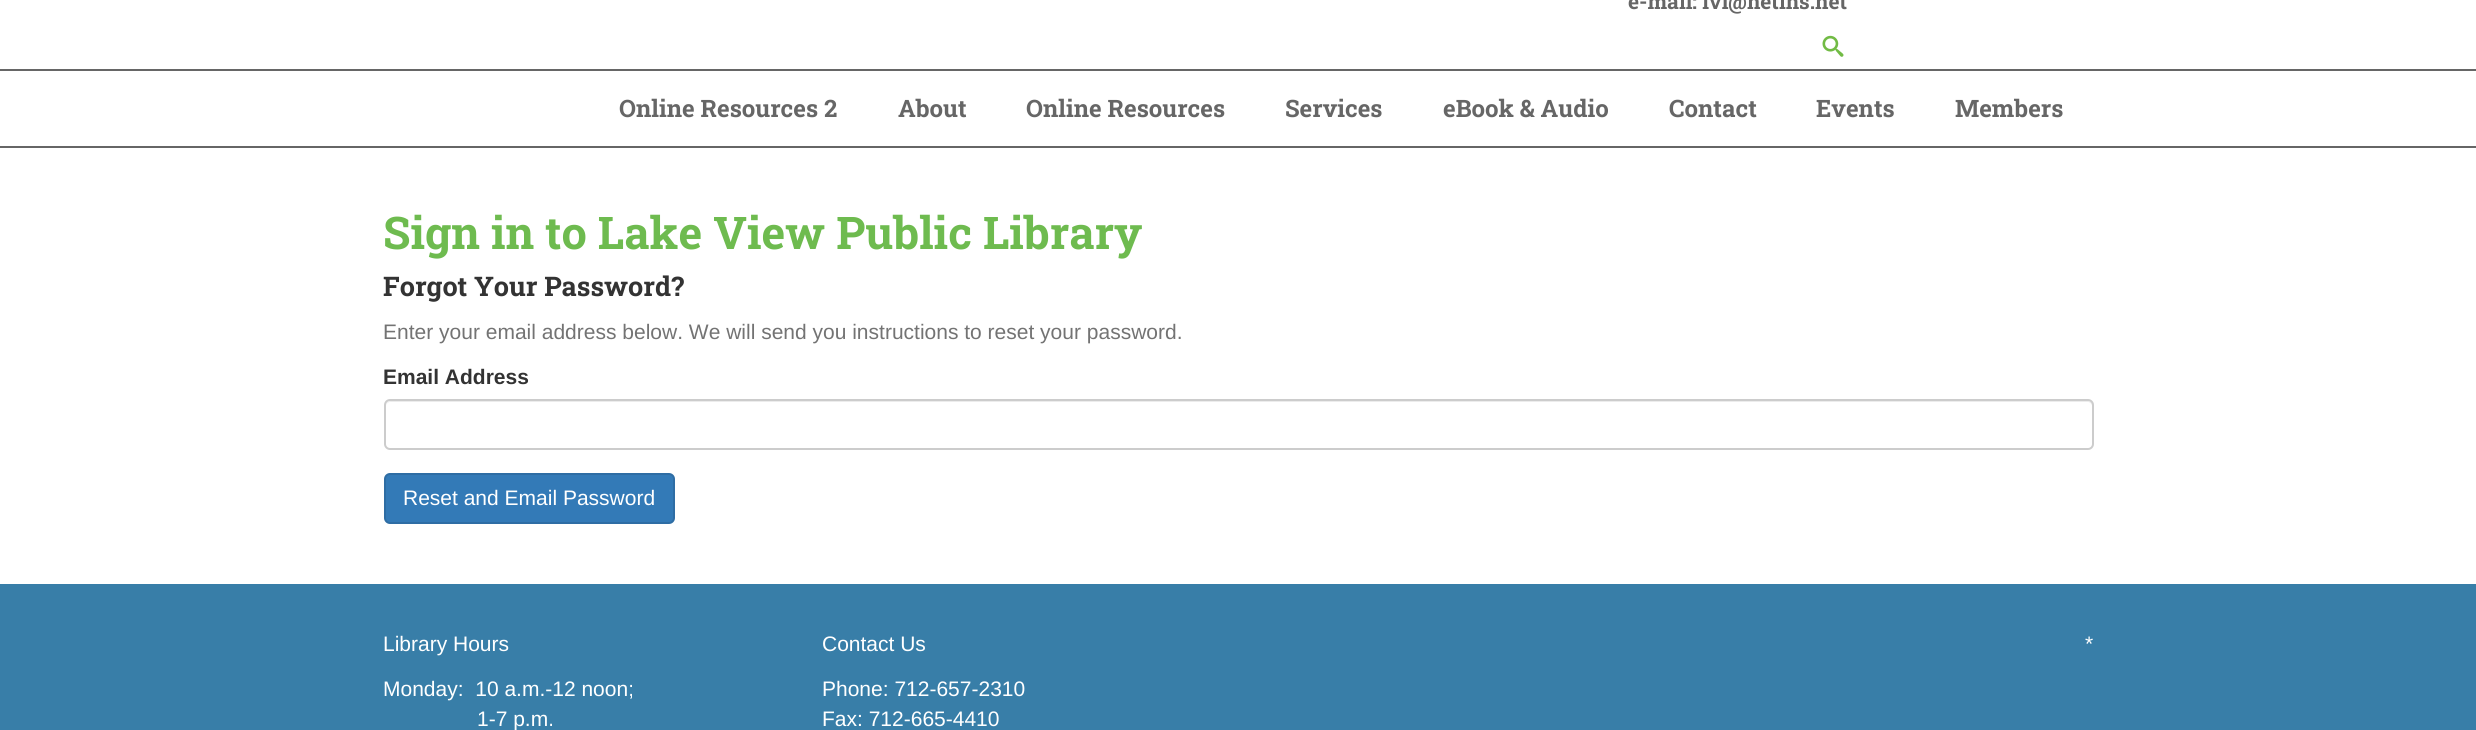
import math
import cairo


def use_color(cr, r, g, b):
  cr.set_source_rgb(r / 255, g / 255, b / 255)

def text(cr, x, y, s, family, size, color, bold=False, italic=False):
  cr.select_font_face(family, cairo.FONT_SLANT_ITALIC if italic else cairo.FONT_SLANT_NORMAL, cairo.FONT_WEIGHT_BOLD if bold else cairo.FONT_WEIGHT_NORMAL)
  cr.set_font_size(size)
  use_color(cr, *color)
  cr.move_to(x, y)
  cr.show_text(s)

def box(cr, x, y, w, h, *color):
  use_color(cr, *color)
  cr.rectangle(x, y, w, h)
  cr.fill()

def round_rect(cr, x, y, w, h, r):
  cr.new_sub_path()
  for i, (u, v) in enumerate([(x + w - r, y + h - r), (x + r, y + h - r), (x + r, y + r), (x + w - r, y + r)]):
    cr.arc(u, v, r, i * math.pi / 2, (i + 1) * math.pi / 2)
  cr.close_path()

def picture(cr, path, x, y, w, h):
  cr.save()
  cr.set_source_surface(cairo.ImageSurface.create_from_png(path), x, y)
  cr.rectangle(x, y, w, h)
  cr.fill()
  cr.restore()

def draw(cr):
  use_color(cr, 255, 255, 255)
  cr.paint()
  picture(cr, "img_01.png", 1822, 35, 22, 22)
  box(cr, 0, 69, 2476, 2, 102, 102, 102)
  box(cr, 0, 146, 2476, 2, 102, 102, 102)
  use_color(cr, 236, 236, 236)
  cr.new_path()
  cr.move_to(390, 402)
  cr.line_to(2088, 402)
  cr.curve_to(2090, 402, 2092, 404, 2092, 406)
  cr.line_to(2092, 447)
  cr.curve_to(2093, 446, 2093, 445, 2093, 444)
  cr.line_to(2093, 406)
  cr.curve_to(2093, 403, 2091, 401, 2088, 401)
  cr.line_to(391, 401)
  cr.curve_to(388, 401, 386, 403, 386, 406)
  cr.curve_to(386, 404, 388, 402, 390, 402)
  cr.close_path()
  cr.fill()
  round_rect(cr, 385, 400, 1708, 49, 5)
  use_color(cr, 204, 204, 204)
  cr.stroke()
  use_color(cr, 51, 122, 183)
  round_rect(cr, 385, 474, 289, 49, 5)
  cr.fill_preserve()
  use_color(cr, 46, 109, 164)
  cr.stroke()
  box(cr, 0, 584, 2476, 146, 56, 126, 168)
  text(cr, 1628, 9, "e-mail: lvl@netins.net", "Roboto Slab", 21, (102, 102, 102), bold=True)
  text(cr, 619, 117, "Online Resources 2", "Roboto Slab", 24, (102, 102, 102), bold=True)
  text(cr, 898, 117, "About", "Roboto Slab", 24, (102, 102, 102), bold=True)
  text(cr, 1026, 117, "Online Resources", "Roboto Slab", 24, (102, 102, 102), bold=True)
  text(cr, 1285, 117, "Services", "Roboto Slab", 24, (102, 102, 102), bold=True)
  text(cr, 1443, 117, "eBook & Audio", "Roboto Slab", 24, (102, 102, 102), bold=True)
  text(cr, 1669, 117, "Contact", "Roboto Slab", 24, (102, 102, 102), bold=True)
  text(cr, 1816, 117, "Events", "Roboto Slab", 24, (102, 102, 102), bold=True)
  text(cr, 1955, 117, "Members", "Roboto Slab", 24, (102, 102, 102), bold=True)
  text(cr, 383, 249, "Sign in to Lake View Public Library", "Roboto Slab", 45, (110, 187, 79), bold=True)
  text(cr, 383, 296, "Forgot Your Password?", "Roboto Slab", 27, (51, 51, 51), bold=True)
  text(cr, 383, 339, "Enter your email address below. We will send you instructions to reset your password.", "Liberation Sans", 21, (115, 115, 115))
  text(cr, 383, 384, "Email Address", "Liberation Sans", 21, (51, 51, 51), bold=True)
  text(cr, 403, 505, "Reset and Email Password", "Liberation Sans", 21, (255, 255, 255))
  text(cr, 383, 651, "Library Hours", "Liberation Sans", 21, (255, 255, 255))
  text(cr, 383, 696, "Monday:  10 a.m.-12 noon;", "Liberation Sans", 21, (255, 255, 255))
  text(cr, 477, 726, "1-7 p.m.", "Liberation Sans", 21, (255, 255, 255))
  text(cr, 822, 651, "Contact Us", "Liberation Sans", 21, (255, 255, 255))
  text(cr, 822, 696, "Phone: 712-657-2310", "Liberation Sans", 21, (255, 255, 255))
  text(cr, 822, 726, "Fax: 712-665-4410", "Liberation Sans", 21, (255, 255, 255))
  text(cr, 2085, 651, "*", "Liberation Sans", 21, (255, 255, 255))


surface = cairo.ImageSurface(cairo.FORMAT_RGB24, 2476, 730)
cr = cairo.Context(surface)
options = cairo.FontOptions()
options.set_hint_metrics(cairo.HINT_METRICS_OFF)
options.set_hint_style(cairo.HINT_STYLE_NONE)
cr.set_font_options(options)
cr.set_miter_limit(4)
draw(cr)
surface.write_to_png("out.png")
